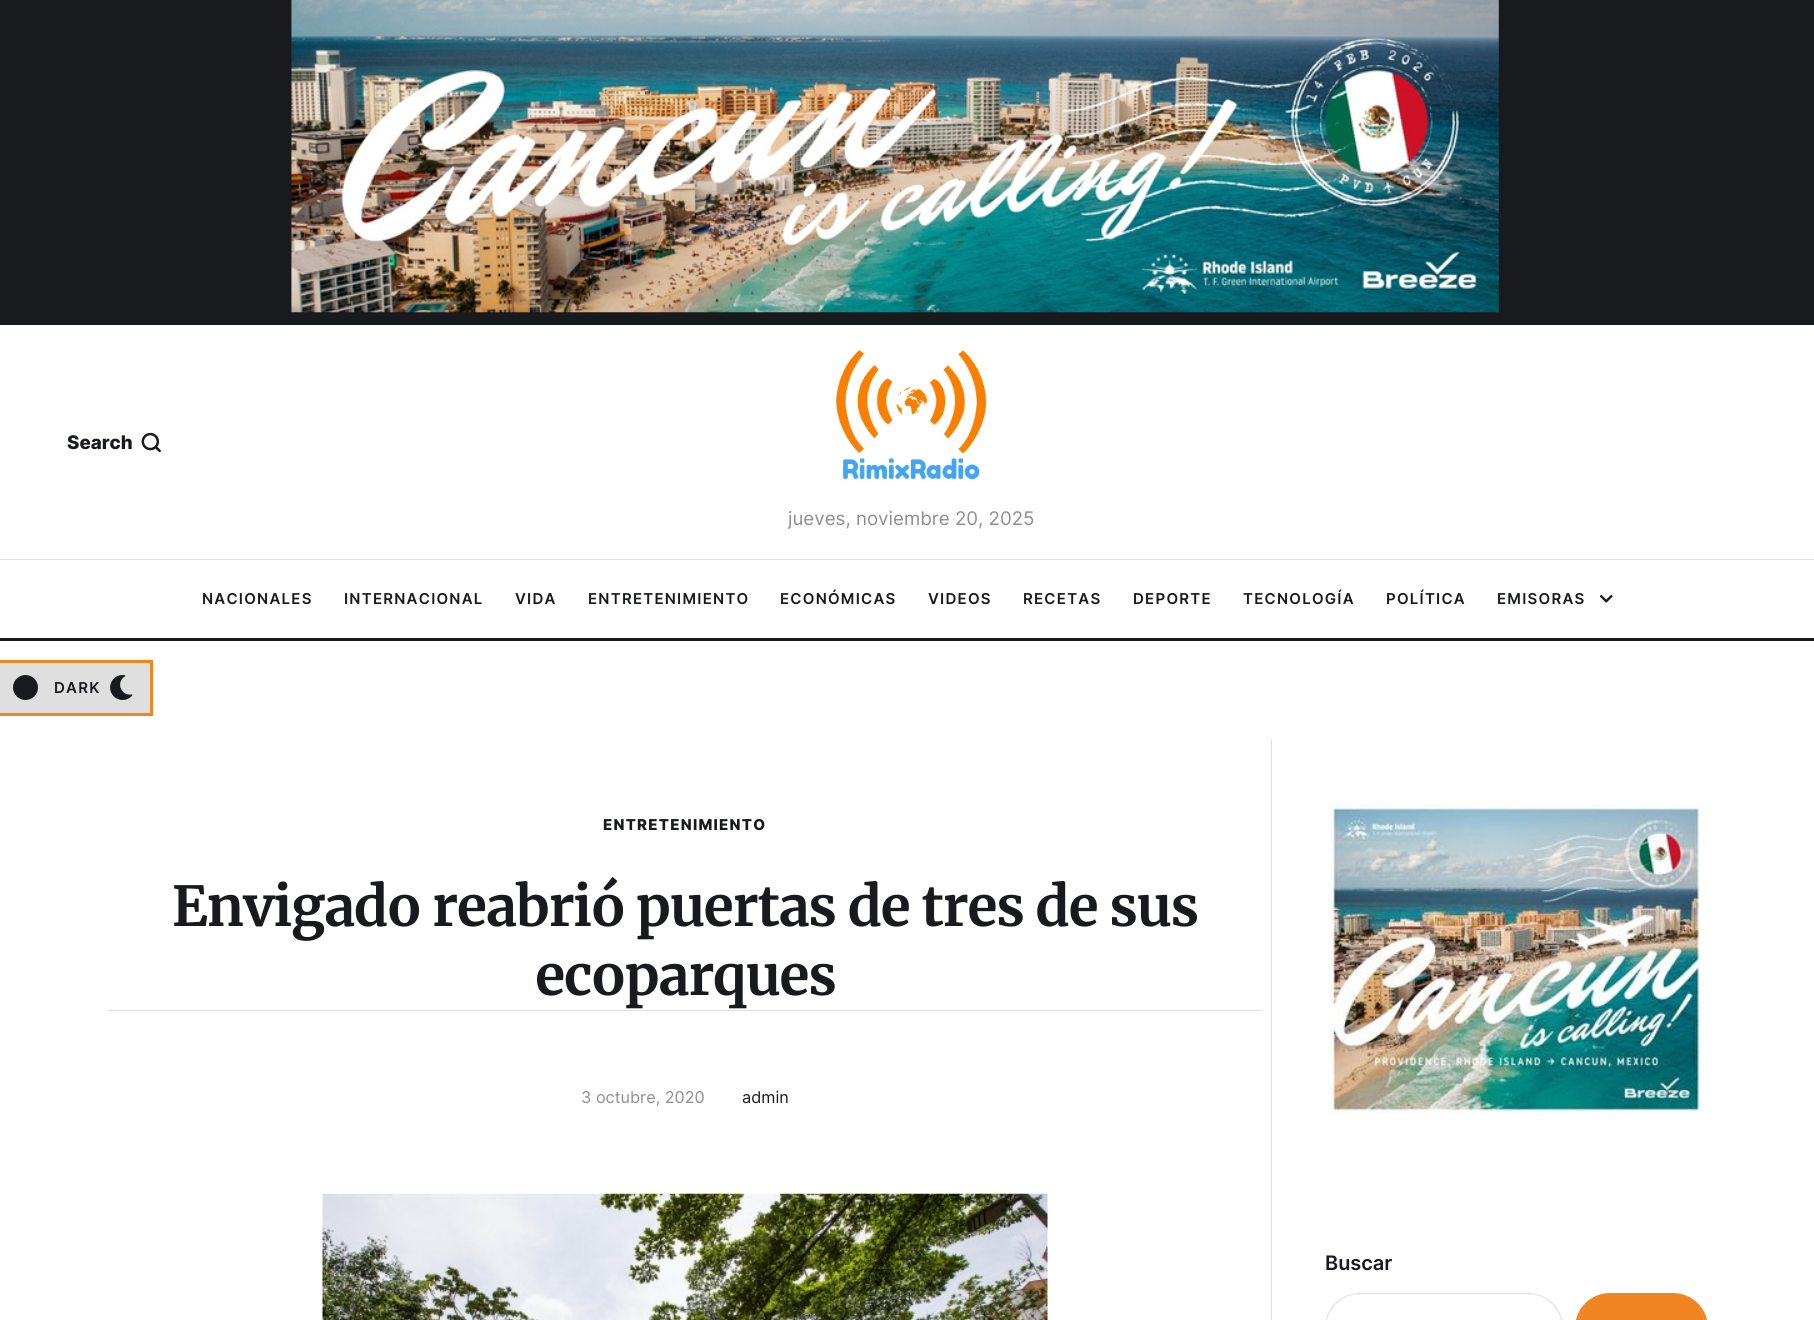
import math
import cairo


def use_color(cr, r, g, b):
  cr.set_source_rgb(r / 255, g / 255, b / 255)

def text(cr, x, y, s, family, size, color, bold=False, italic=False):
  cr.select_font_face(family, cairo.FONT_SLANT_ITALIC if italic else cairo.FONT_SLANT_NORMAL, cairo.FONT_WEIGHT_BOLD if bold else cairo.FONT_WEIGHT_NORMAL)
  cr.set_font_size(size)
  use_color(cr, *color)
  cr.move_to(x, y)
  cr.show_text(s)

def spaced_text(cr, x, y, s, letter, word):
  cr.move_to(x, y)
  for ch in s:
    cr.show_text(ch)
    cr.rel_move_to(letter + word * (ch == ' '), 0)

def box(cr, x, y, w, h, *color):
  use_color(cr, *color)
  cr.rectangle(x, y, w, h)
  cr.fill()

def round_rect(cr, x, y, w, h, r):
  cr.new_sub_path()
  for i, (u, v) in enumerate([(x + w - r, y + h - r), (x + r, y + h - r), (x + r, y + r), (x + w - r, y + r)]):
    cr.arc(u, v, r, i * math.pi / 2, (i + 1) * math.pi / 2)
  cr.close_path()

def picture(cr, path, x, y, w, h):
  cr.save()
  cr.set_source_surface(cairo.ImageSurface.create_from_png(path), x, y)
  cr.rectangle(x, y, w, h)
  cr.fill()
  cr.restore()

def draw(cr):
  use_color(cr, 255, 255, 255)
  cr.paint()
  box(cr, 0, 638, 1814, 3, 25, 26, 30)
  box(cr, 0, 0, 1814, 325, 25, 26, 30)
  picture(cr, "img_01.png", 291, 0, 1208, 313)
  box(cr, 0, 559, 1814, 1, 223, 223, 223)
  picture(cr, "img_02.png", 141, 432, 20, 21)
  picture(cr, "img_03.png", 836, 350, 151, 130)
  picture(cr, "img_04.png", 1599, 594, 14, 9)
  box(cr, 0, 663, 150, 50, 223, 223, 223)
  use_color(cr, 25, 26, 30)
  cr.arc(25.5, 687.5, 12.5, 0, 2 * math.pi)
  cr.fill()
  box(cr, 0, 660, 153, 3, 240, 132, 32)
  box(cr, 150, 660, 3, 55, 240, 132, 32)
  box(cr, 0, 713, 153, 3, 240, 132, 32)
  picture(cr, "img_05.png", 110, 675, 23, 25)
  box(cr, 108, 1010, 1155, 1, 223, 223, 223)
  picture(cr, "img_06.png", 322, 1193, 726, 127)
  box(cr, 1271, 740, 1, 580, 223, 223, 223)
  picture(cr, "img_07.png", 1329, 804, 375, 312)
  round_rect(cr, 1325.5, 1293.5, 237, 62, 34.5)
  cr.set_line_width(1)
  cr.stroke()
  round_rect(cr, 1576.5, 1294.5, 130, 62, 33.5)
  use_color(cr, 240, 132, 32)
  cr.set_line_width(3)
  cr.stroke()
  round_rect(cr, 1578, 1295, 127, 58, 32.5)
  cr.fill()
  text(cr, 67, 449, "Search", "Inter ExtraBold", 18.75, (25, 26, 30))
  text(cr, 788, 525, "jueves, noviembre 20, 2025", "Inter", 18.75, (142, 142, 142))
  cr.select_font_face("Inter SemiBold")
  cr.set_font_size(15)
  use_color(cr, 25, 26, 30)
  spaced_text(cr, 202, 604, "NACIONALES", 1.25, 0)
  spaced_text(cr, 344, 604, "INTERNACIONAL", 1.25, 0)
  spaced_text(cr, 515, 604, "VIDA", 1.25, 0)
  spaced_text(cr, 588, 604, "ENTRETENIMIENTO", 1.25, 0)
  spaced_text(cr, 780, 604, "ECONÓMICAS", 1.25, 0)
  spaced_text(cr, 928, 604, "VIDEOS", 1.25, 0)
  spaced_text(cr, 1023, 604, "RECETAS", 1.25, 0)
  spaced_text(cr, 1133, 604, "DEPORTE", 1.25, 0)
  spaced_text(cr, 1243, 604, "TECNOLOGÍA", 1.25, 0)
  spaced_text(cr, 1386, 604, "POLÍTICA", 1.25, 0)
  spaced_text(cr, 1497, 604, "EMISORAS", 1.25, 0)
  spaced_text(cr, 54, 693, "DARK", 1.25, 0)
  cr.select_font_face("Inter ExtraBold")
  spaced_text(cr, 603, 830, "ENTRETENIMIENTO", 1.25, 0)
  cr.select_font_face("Merriweather", cairo.FONT_SLANT_NORMAL, cairo.FONT_WEIGHT_BOLD)
  cr.set_font_size(55)
  spaced_text(cr, 172, 926, "Envigado reabrió puertas de tres de sus", -1.25, 0)
  spaced_text(cr, 535, 995, "ecoparques", -1.25, 0)
  text(cr, 581, 1103, "3 octubre, 2020", "Inter", 16.25, (142, 142, 142))
  text(cr, 742, 1103, "admin", "Inter", 16.25, (25, 26, 30))
  text(cr, 1325, 1270, "Buscar", "Inter SemiBold", 20, (25, 26, 30))


surface = cairo.ImageSurface(cairo.FORMAT_RGB24, 1814, 1320)
cr = cairo.Context(surface)
options = cairo.FontOptions()
options.set_hint_metrics(cairo.HINT_METRICS_OFF)
options.set_hint_style(cairo.HINT_STYLE_NONE)
cr.set_font_options(options)
cr.set_miter_limit(4)
draw(cr)
surface.write_to_png("out.png")
